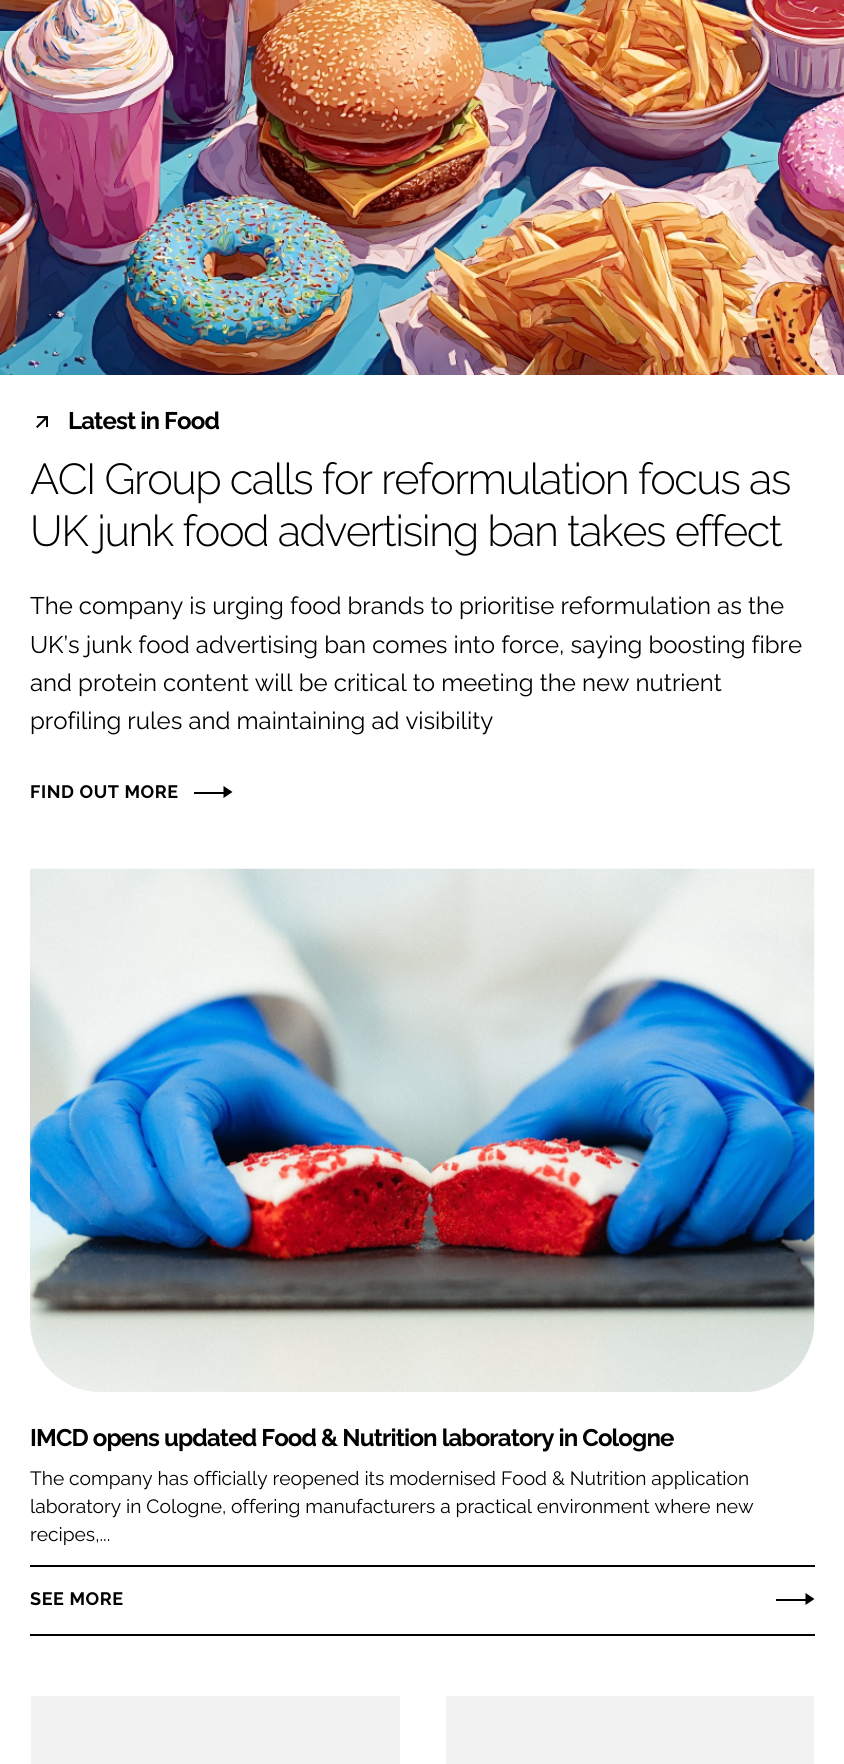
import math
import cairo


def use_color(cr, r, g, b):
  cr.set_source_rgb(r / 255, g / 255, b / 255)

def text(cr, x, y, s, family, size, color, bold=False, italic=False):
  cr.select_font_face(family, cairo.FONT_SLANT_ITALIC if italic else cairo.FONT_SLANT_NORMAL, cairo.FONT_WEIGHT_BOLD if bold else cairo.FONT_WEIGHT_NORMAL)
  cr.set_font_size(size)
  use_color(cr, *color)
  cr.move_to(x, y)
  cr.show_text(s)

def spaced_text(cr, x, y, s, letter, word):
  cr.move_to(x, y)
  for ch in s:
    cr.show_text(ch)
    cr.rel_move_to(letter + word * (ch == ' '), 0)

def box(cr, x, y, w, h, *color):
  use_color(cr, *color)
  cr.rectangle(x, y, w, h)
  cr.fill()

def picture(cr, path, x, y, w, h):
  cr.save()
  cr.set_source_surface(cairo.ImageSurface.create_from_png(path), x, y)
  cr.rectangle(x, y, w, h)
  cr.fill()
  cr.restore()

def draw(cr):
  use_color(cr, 255, 255, 255)
  cr.paint()
  picture(cr, "img_01.png", 0, 0, 844, 375)
  picture(cr, "img_02.png", 36, 416, 12, 12)
  use_color(cr, 0, 0, 0)
  cr.new_path()
  cr.move_to(223.5, 798)
  cr.line_to(223.5, 786)
  cr.line_to(232.5, 792)
  cr.close_path()
  cr.fill()
  box(cr, 194, 792, 30, 2, 0, 0, 0)
  use_color(cr, 242, 242, 242)
  cr.new_path()
  cr.move_to(30, 868)
  cr.line_to(815, 868)
  cr.line_to(815, 1322)
  cr.curve_to(815, 1361, 783, 1393, 744, 1393)
  cr.line_to(101, 1393)
  cr.curve_to(62, 1393, 30, 1361, 30, 1322)
  cr.close_path()
  cr.fill_preserve()
  use_color(cr, 255, 255, 255)
  cr.stroke()
  picture(cr, "img_03.png", 30, 868, 785, 524)
  box(cr, 30, 1565, 785, 2, 0, 0, 0)
  box(cr, 30, 1634, 785, 2, 0, 0, 0)
  cr.new_path()
  cr.move_to(805.5, 1605)
  cr.line_to(805.5, 1593)
  cr.line_to(814.5, 1599)
  cr.close_path()
  cr.fill()
  box(cr, 776, 1599, 30, 2, 0, 0, 0)
  box(cr, 31, 1696, 369, 68, 242, 242, 242)
  box(cr, 446, 1696, 368, 68, 242, 242, 242)
  cr.select_font_face("Raleway", cairo.FONT_SLANT_NORMAL, cairo.FONT_WEIGHT_BOLD)
  cr.set_font_size(24)
  use_color(cr, 0, 0, 0)
  spaced_text(cr, 68, 429, "Latest in Food", -0.85, 0)
  cr.select_font_face("Raleway Light")
  cr.set_font_size(43.25)
  spaced_text(cr, 30, 494, "ACI Group calls for reformulation focus as", -1.5, 0)
  spaced_text(cr, 30, 546, "UK junk food advertising ban takes effect", -1.5, 0)
  text(cr, 30, 614, "The company is urging food brands to prioritise reformulation as the", "Raleway", 24, (0, 0, 0))
  text(cr, 30, 653, "UK’s junk food advertising ban comes into force, saying boosting fibre", "Raleway", 24, (0, 0, 0))
  text(cr, 30, 691, "and protein content will be critical to meeting the new nutrient", "Raleway", 24, (0, 0, 0))
  text(cr, 30, 729, "profiling rules and maintaining ad visibility", "Raleway", 24, (0, 0, 0))
  cr.select_font_face("Raleway", cairo.FONT_SLANT_NORMAL, cairo.FONT_WEIGHT_BOLD)
  cr.set_font_size(18)
  spaced_text(cr, 30, 798, "FIND OUT MORE", 0.6, 0)
  cr.set_font_size(24)
  spaced_text(cr, 30, 1446, "IMCD opens updated Food & Nutrition laboratory in Cologne", -0.85, 0)
  text(cr, 30, 1485, "The company has officially reopened its modernised Food & Nutrition application", "Raleway", 19.2, (0, 0, 0))
  text(cr, 30, 1513, "laboratory in Cologne, offering manufacturers a practical environment where new", "Raleway", 19.2, (0, 0, 0))
  text(cr, 30, 1541, "recipes,...", "Raleway", 19.2, (0, 0, 0))
  cr.select_font_face("Raleway", cairo.FONT_SLANT_NORMAL, cairo.FONT_WEIGHT_BOLD)
  cr.set_font_size(18)
  spaced_text(cr, 30, 1605, "SEE MORE", 0.6, 0)


surface = cairo.ImageSurface(cairo.FORMAT_RGB24, 844, 1764)
cr = cairo.Context(surface)
options = cairo.FontOptions()
options.set_hint_metrics(cairo.HINT_METRICS_OFF)
options.set_hint_style(cairo.HINT_STYLE_NONE)
cr.set_font_options(options)
cr.set_miter_limit(4)
draw(cr)
surface.write_to_png("out.png")
